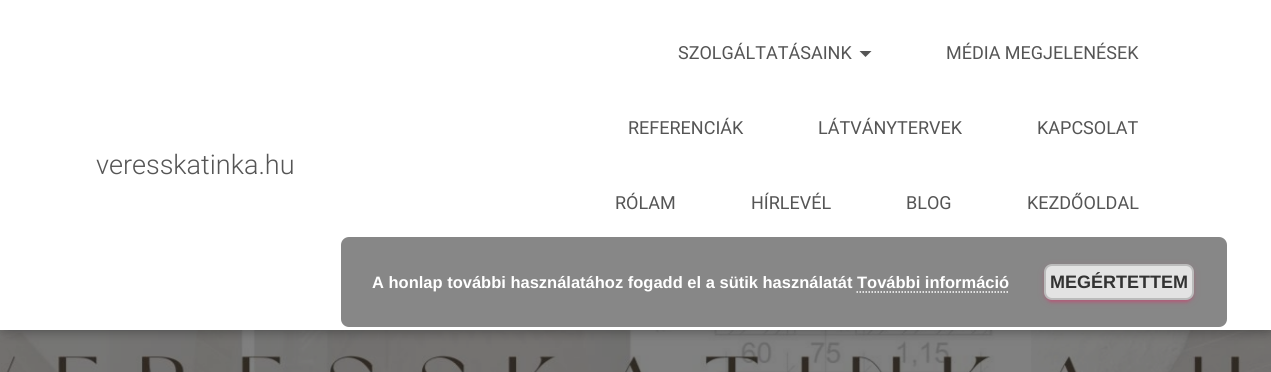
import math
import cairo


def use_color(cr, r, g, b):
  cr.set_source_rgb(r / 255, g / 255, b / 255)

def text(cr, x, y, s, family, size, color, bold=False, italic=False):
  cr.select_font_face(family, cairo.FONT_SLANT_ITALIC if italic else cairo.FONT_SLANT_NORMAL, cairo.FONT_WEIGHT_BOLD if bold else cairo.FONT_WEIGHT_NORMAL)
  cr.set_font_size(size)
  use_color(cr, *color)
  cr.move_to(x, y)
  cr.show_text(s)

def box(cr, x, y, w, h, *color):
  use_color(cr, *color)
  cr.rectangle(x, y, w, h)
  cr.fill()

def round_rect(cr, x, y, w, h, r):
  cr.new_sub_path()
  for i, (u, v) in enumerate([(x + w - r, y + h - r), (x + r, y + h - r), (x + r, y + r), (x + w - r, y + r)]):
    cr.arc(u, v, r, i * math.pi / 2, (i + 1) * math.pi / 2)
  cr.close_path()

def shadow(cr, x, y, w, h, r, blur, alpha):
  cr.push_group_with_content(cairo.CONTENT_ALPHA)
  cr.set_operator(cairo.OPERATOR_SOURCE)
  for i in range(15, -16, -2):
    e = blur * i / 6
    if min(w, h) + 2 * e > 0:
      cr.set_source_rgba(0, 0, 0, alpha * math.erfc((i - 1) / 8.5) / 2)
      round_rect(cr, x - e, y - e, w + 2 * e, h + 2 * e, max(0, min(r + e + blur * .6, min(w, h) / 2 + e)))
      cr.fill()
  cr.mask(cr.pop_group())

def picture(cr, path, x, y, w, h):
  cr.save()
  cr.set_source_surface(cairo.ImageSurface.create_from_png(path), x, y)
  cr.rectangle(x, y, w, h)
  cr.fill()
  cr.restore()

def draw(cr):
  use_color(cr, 255, 255, 255)
  cr.paint()
  picture(cr, "img_01.png", 0, 330, 1271, 42)
  use_color(cr, 0, 0, 0)
  shadow(cr, 3, 9, 1266, 324, 0, 4, 0.1)
  shadow(cr, 0, 2, 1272, 330, 0, 7.5, 0.12)
  shadow(cr, 9, 11, 1254, 312, 0, 7.5, 0.42)
  box(cr, 0, 0, 1271, 330, 255, 255, 255)
  use_color(cr, 85, 85, 85)
  cr.new_path()
  cr.move_to(859.5, 51)
  cr.line_to(871.5, 51)
  cr.line_to(865.5, 57)
  cr.close_path()
  cr.fill()
  cr.set_source_rgba(0.447, 0.447, 0.447, 0.85)
  round_rect(cr, 341, 237, 886, 90, 8)
  cr.fill()
  use_color(cr, 233, 30, 99)
  shadow(cr, 1044, 266, 150, 36, 8, 4, 0.12)
  shadow(cr, 1047, 272, 144, 30, 5, 1, 0.2)
  shadow(cr, 1044, 267, 150, 36, 8, 1.5, 0.14)
  use_color(cr, 227, 227, 227)
  round_rect(cr, 1045, 265, 148, 34, 7)
  cr.fill_preserve()
  use_color(cr, 187, 187, 187)
  cr.stroke()
  cr.new_path()
  cr.move_to(856.5, 292)
  cr.line_to(1009.5, 292)
  use_color(cr, 255, 255, 255)
  cr.set_line_width(1.5)
  cr.set_dash([1.5, 1.5])
  cr.stroke()
  text(cr, 96, 174, "veresskatinka.hu", "Roboto Light", 27, (85, 85, 85))
  text(cr, 678, 59, "SZOLGÁLTATÁSAINK", "Roboto", 18, (85, 85, 85))
  text(cr, 946, 59, "MÉDIA MEGJELENÉSEK", "Roboto", 18, (85, 85, 85))
  text(cr, 628, 134, "REFERENCIÁK", "Roboto", 18, (85, 85, 85))
  text(cr, 818, 134, "LÁTVÁNYTERVEK", "Roboto", 18, (85, 85, 85))
  text(cr, 1037, 134, "KAPCSOLAT", "Roboto", 18, (85, 85, 85))
  text(cr, 615, 209, "RÓLAM", "Roboto", 18, (85, 85, 85))
  text(cr, 751, 209, "HÍRLEVÉL", "Roboto", 18, (85, 85, 85))
  text(cr, 906, 209, "BLOG", "Roboto", 18, (85, 85, 85))
  text(cr, 1027, 209, "KEZDŐOLDAL", "Roboto", 18, (85, 85, 85))
  text(cr, 372, 288, "A honlap további használatához fogadd el a sütik használatát További információ", "Liberation Sans", 16.5, (255, 255, 255), bold=True)
  text(cr, 1050, 288, "MEGÉRTETTEM", "Liberation Sans", 18, (51, 51, 51), bold=True)


surface = cairo.ImageSurface(cairo.FORMAT_RGB24, 1271, 372)
cr = cairo.Context(surface)
options = cairo.FontOptions()
options.set_hint_metrics(cairo.HINT_METRICS_OFF)
options.set_hint_style(cairo.HINT_STYLE_NONE)
cr.set_font_options(options)
cr.set_miter_limit(4)
draw(cr)
surface.write_to_png("out.png")
